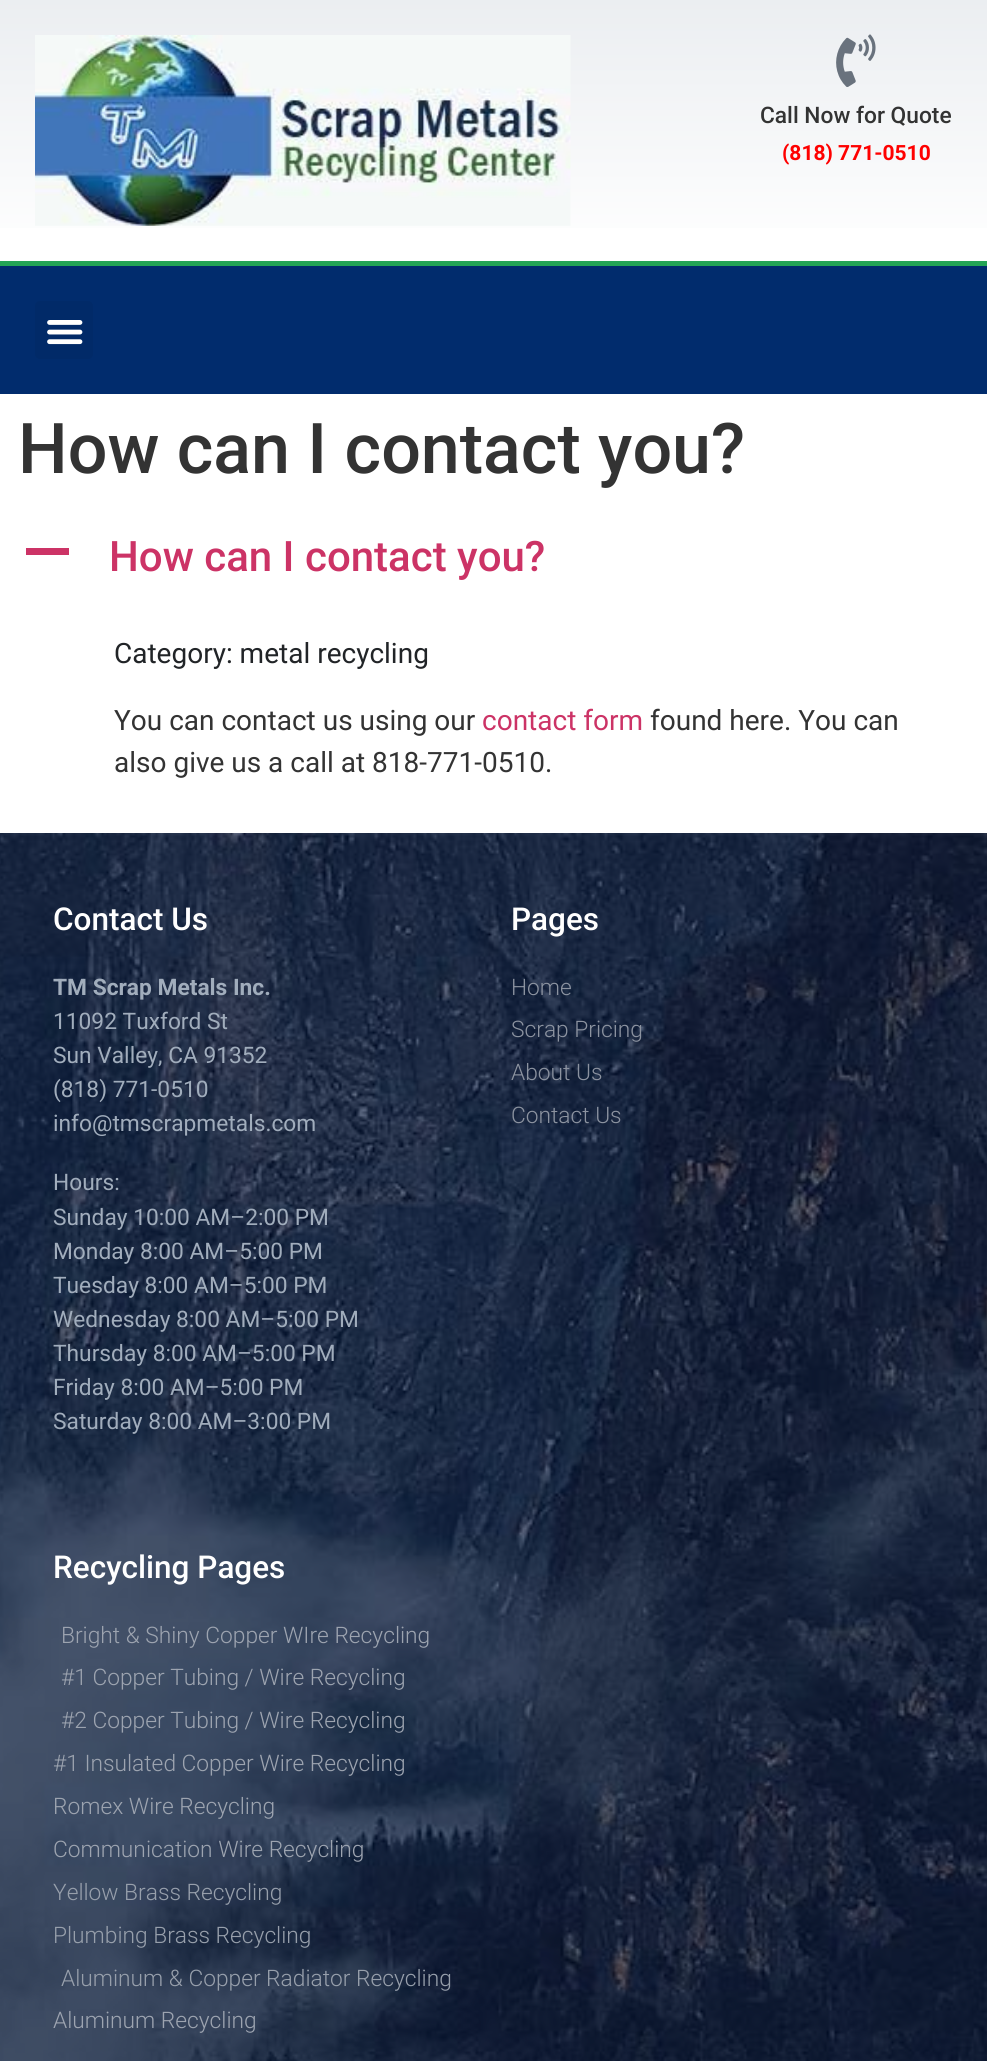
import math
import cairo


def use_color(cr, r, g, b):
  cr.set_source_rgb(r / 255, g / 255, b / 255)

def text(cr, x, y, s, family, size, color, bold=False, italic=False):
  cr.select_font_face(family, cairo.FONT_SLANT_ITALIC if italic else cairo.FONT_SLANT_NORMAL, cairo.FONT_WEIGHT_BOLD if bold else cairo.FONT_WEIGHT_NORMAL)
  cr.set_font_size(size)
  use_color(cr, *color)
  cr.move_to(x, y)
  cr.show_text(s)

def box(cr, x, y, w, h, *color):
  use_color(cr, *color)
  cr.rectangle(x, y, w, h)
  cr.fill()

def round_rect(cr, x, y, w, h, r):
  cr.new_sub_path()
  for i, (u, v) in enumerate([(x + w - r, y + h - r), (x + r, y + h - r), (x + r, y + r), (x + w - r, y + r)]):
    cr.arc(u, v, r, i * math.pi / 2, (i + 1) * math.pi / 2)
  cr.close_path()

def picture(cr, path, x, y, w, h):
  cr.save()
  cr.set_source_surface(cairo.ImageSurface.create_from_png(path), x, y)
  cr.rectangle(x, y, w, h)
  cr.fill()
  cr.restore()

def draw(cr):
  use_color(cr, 255, 255, 255)
  cr.paint()
  gradient = cairo.LinearGradient(494, 0, 494, 261)
  gradient.add_color_stop_rgba(0, 0.922, 0.933, 0.945, 1)
  gradient.add_color_stop_rgba(1, 1, 1, 1, 1)
  cr.set_source(gradient)
  cr.rectangle(0, 0, 987, 228)
  cr.fill()
  picture(cr, "img_01.png", 35, 35, 536, 191)
  picture(cr, "img_02.png", 836, 34, 40, 53)
  box(cr, 0, 266, 987, 128, 1, 44, 109)
  box(cr, 0, 261, 987, 5, 35, 164, 85)
  use_color(cr, 1, 42, 104)
  round_rect(cr, 35, 301, 58, 58, 5)
  cr.fill()
  picture(cr, "img_03.png", 47, 320, 36, 25)
  box(cr, 26, 548, 43, 7, 204, 51, 102)
  picture(cr, "img_04.png", 0, 833, 987, 1228)
  text(cr, 760, 123, "Call Now for Quote", "Roboto Medium", 22.75, (51, 51, 51))
  text(cr, 782, 160, "(818) 771-0510", "Roboto", 21, (255, 0, 0), bold=True)
  text(cr, 18, 473, "How can I contact you?", "Roboto Medium", 70, (51, 51, 51))
  text(cr, 109, 571, "How can I contact you?", "Roboto Medium", 42, (204, 51, 102))
  text(cr, 114, 663, "Category: metal recycling", "Roboto", 28, (33, 36, 39))
  text(cr, 114, 730, "You can contact us using our", "Roboto", 28, (51, 51, 51))
  text(cr, 482, 730, "contact form", "Roboto", 28, (204, 51, 102))
  text(cr, 650, 730, "found here. You can", "Roboto", 28, (51, 51, 51))
  text(cr, 114, 772, "also give us a call at 818-771-0510.", "Roboto", 28, (51, 51, 51))
  text(cr, 53, 930, "Contact Us", "Roboto Medium", 31.5, (255, 255, 255))
  text(cr, 53, 995, "TM Scrap Metals Inc.", "Roboto", 22.75, (161, 173, 188), bold=True)
  text(cr, 53, 1029, "11092 Tuxford St", "Roboto", 22.75, (161, 173, 188))
  text(cr, 53, 1063, "Sun Valley, CA 91352", "Roboto", 22.75, (161, 173, 188))
  text(cr, 53, 1097, "(818) 771-0510", "Roboto", 22.75, (161, 173, 188))
  text(cr, 53, 1131, "info@tmscrapmetals.com", "Roboto", 22.75, (161, 173, 188))
  text(cr, 53, 1190, "Hours:", "Roboto", 22.75, (161, 173, 188))
  text(cr, 53, 1225, "Sunday 10:00 AM–2:00 PM", "Roboto", 22.75, (161, 173, 188))
  text(cr, 53, 1259, "Monday 8:00 AM–5:00 PM", "Roboto", 22.75, (161, 173, 188))
  text(cr, 53, 1293, "Tuesday 8:00 AM–5:00 PM", "Roboto", 22.75, (161, 173, 188))
  text(cr, 53, 1327, "Wednesday 8:00 AM–5:00 PM", "Roboto", 22.75, (161, 173, 188))
  text(cr, 53, 1361, "Thursday 8:00 AM–5:00 PM", "Roboto", 22.75, (161, 173, 188))
  text(cr, 53, 1395, "Friday 8:00 AM–5:00 PM", "Roboto", 22.75, (161, 173, 188))
  text(cr, 53, 1429, "Saturday 8:00 AM–3:00 PM", "Roboto", 22.75, (161, 173, 188))
  text(cr, 511, 930, "Pages", "Roboto Medium", 31.5, (255, 255, 255))
  text(cr, 511, 995, "Home", "Roboto Light", 22.75, (140, 147, 160))
  text(cr, 511, 1037, "Scrap Pricing", "Roboto Light", 22.75, (140, 147, 160))
  text(cr, 511, 1080, "About Us", "Roboto Light", 22.75, (140, 147, 160))
  text(cr, 511, 1123, "Contact Us", "Roboto Light", 22.75, (140, 147, 160))
  text(cr, 53, 1578, "Recycling Pages", "Roboto Medium", 31.5, (255, 255, 255))
  text(cr, 61, 1643, "Bright & Shiny Copper WIre Recycling", "Roboto Light", 22.75, (157, 164, 176))
  text(cr, 61, 1685, "#1 Copper Tubing / Wire Recycling", "Roboto Light", 22.75, (157, 164, 176))
  text(cr, 61, 1728, "#2 Copper Tubing / Wire Recycling", "Roboto Light", 22.75, (157, 164, 176))
  text(cr, 53, 1771, "#1 Insulated Copper Wire Recycling", "Roboto Light", 22.75, (157, 164, 176))
  text(cr, 53, 1814, "Romex Wire Recycling", "Roboto Light", 22.75, (157, 164, 176))
  text(cr, 53, 1857, "Communication Wire Recycling", "Roboto Light", 22.75, (157, 164, 176))
  text(cr, 53, 1900, "Yellow Brass Recycling", "Roboto Light", 22.75, (151, 159, 171))
  text(cr, 53, 1943, "Plumbing Brass Recycling", "Roboto Light", 22.75, (151, 159, 171))
  text(cr, 61, 1986, "Aluminum & Copper Radiator Recycling", "Roboto Light", 22.75, (151, 159, 171))
  text(cr, 53, 2028, "Aluminum Recycling", "Roboto Light", 22.75, (157, 164, 176))


surface = cairo.ImageSurface(cairo.FORMAT_RGB24, 987, 2061)
cr = cairo.Context(surface)
options = cairo.FontOptions()
options.set_hint_metrics(cairo.HINT_METRICS_OFF)
options.set_hint_style(cairo.HINT_STYLE_NONE)
cr.set_font_options(options)
cr.set_miter_limit(4)
draw(cr)
surface.write_to_png("out.png")
